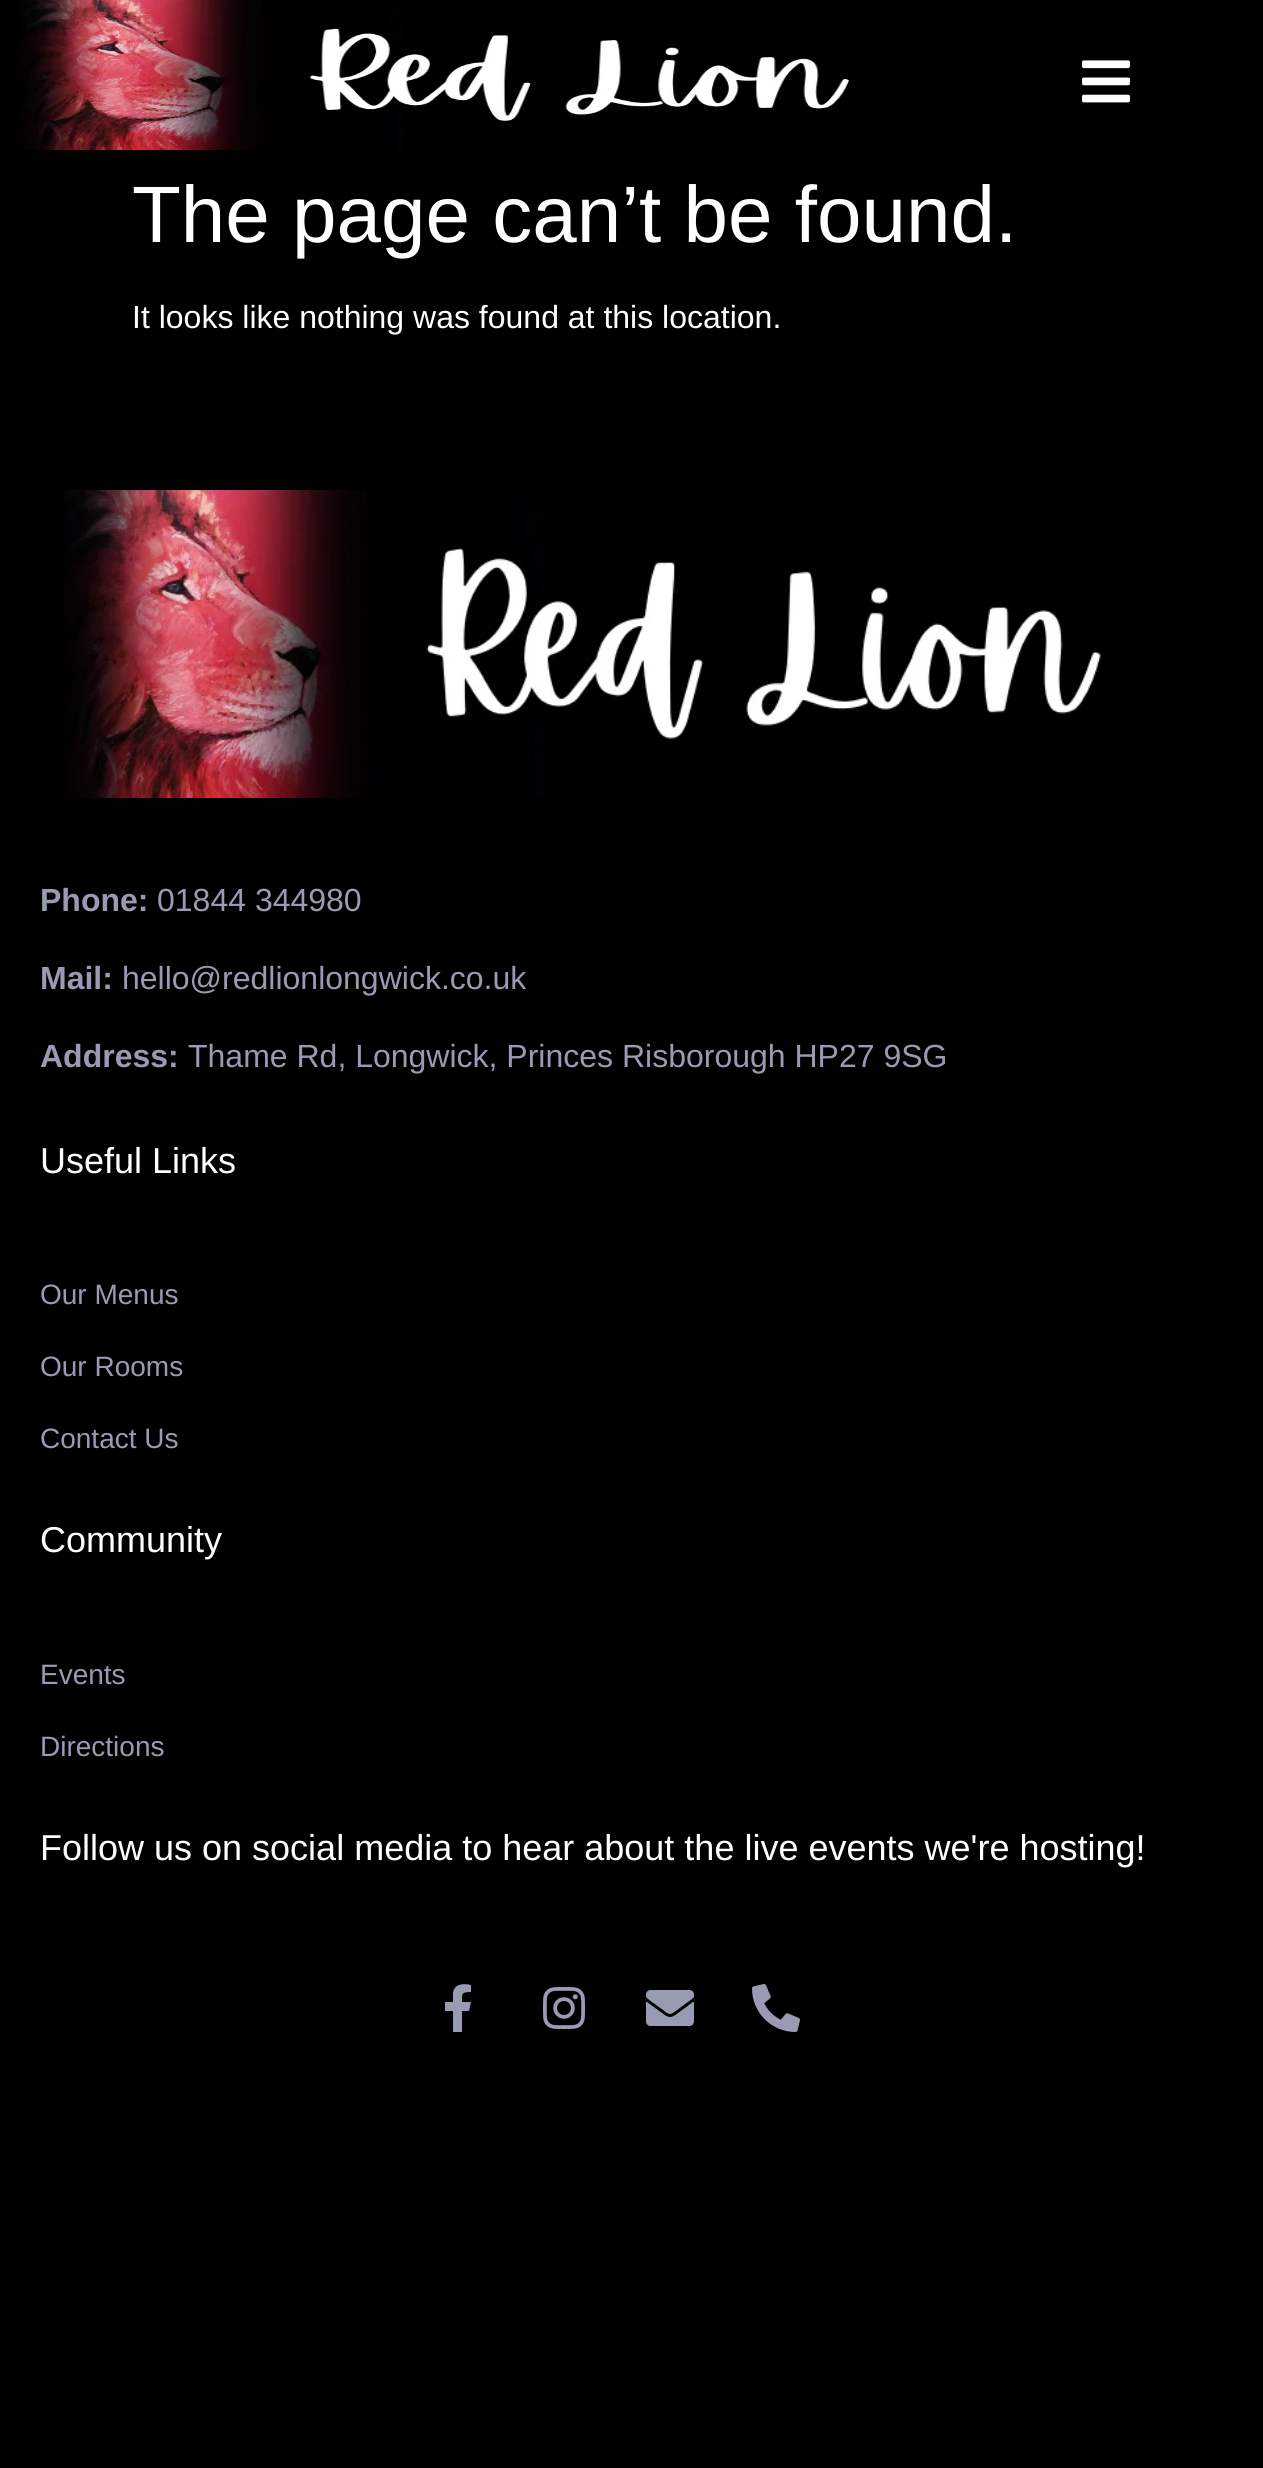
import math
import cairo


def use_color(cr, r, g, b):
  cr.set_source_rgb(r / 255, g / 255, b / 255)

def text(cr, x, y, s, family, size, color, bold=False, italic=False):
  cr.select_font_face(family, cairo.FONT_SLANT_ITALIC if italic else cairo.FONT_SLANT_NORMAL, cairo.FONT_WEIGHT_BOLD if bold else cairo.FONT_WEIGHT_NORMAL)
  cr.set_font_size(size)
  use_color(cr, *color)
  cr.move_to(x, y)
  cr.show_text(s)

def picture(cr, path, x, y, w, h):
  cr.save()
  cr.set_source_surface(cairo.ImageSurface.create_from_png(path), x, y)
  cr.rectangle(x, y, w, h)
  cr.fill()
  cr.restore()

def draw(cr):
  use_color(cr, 0, 0, 0)
  cr.paint()
  picture(cr, "img_01.png", 19, 0, 831, 150)
  picture(cr, "img_02.png", 1082, 60, 48, 43)
  picture(cr, "img_03.png", 64, 490, 1037, 308)
  use_color(cr, 152, 155, 177)
  cr.new_path()
  cr.move_to(469, 2011)
  cr.line_to(471, 2002)
  cr.line_to(462, 2002)
  cr.curve_to(462, 1994, 461, 1992, 471, 1992)
  cr.line_to(471, 1985)
  cr.curve_to(463, 1983, 454, 1984, 453, 1993)
  cr.line_to(453, 2002)
  cr.line_to(445, 2002)
  cr.line_to(445, 2011)
  cr.line_to(453, 2011)
  cr.line_to(453, 2032)
  cr.line_to(462, 2032)
  cr.line_to(462, 2011)
  cr.close_path()
  cr.fill()
  picture(cr, "img_04.png", 543, 1987, 42, 42)
  picture(cr, "img_05.png", 646, 1990, 48, 36)
  picture(cr, "img_06.png", 752, 1984, 48, 48)
  text(cr, 132, 242, "The page can’t be found.", "Liberation Sans", 80, (255, 255, 255))
  text(cr, 132, 328, "It looks like nothing was found at this location.", "Liberation Sans", 32, (255, 255, 255))
  text(cr, 40, 911, "Phone:", "Liberation Sans", 32, (152, 155, 177), bold=True)
  text(cr, 157, 911, "01844 344980", "Liberation Sans", 32, (152, 155, 177))
  text(cr, 40, 989, "Mail:", "Liberation Sans", 32, (152, 155, 177), bold=True)
  text(cr, 122, 989, "hello@redlionlongwick.co.uk", "Liberation Sans", 32, (152, 155, 177))
  text(cr, 40, 1067, "Address:", "Liberation Sans", 32, (152, 155, 177), bold=True)
  text(cr, 188, 1067, "Thame Rd, Longwick, Princes Risborough HP27 9SG", "Liberation Sans", 32, (152, 155, 177))
  text(cr, 40, 1173, "Useful Links", "Liberation Sans", 36, (255, 255, 255))
  text(cr, 40, 1304, "Our Menus", "Liberation Sans", 28, (152, 155, 177))
  text(cr, 40, 1376, "Our Rooms", "Liberation Sans", 28, (152, 155, 177))
  text(cr, 40, 1448, "Contact Us", "Liberation Sans", 28, (152, 155, 177))
  text(cr, 40, 1552, "Community", "Liberation Sans", 36, (255, 255, 255))
  text(cr, 40, 1684, "Events", "Liberation Sans", 28, (152, 155, 177))
  text(cr, 40, 1756, "Directions", "Liberation Sans", 28, (152, 155, 177))
  text(cr, 40, 1860, "Follow us on social media to hear about the live events we're hosting!", "Liberation Sans", 36, (255, 255, 255))


surface = cairo.ImageSurface(cairo.FORMAT_RGB24, 1263, 2468)
cr = cairo.Context(surface)
options = cairo.FontOptions()
options.set_hint_metrics(cairo.HINT_METRICS_OFF)
options.set_hint_style(cairo.HINT_STYLE_NONE)
cr.set_font_options(options)
cr.set_miter_limit(4)
draw(cr)
surface.write_to_png("out.png")
